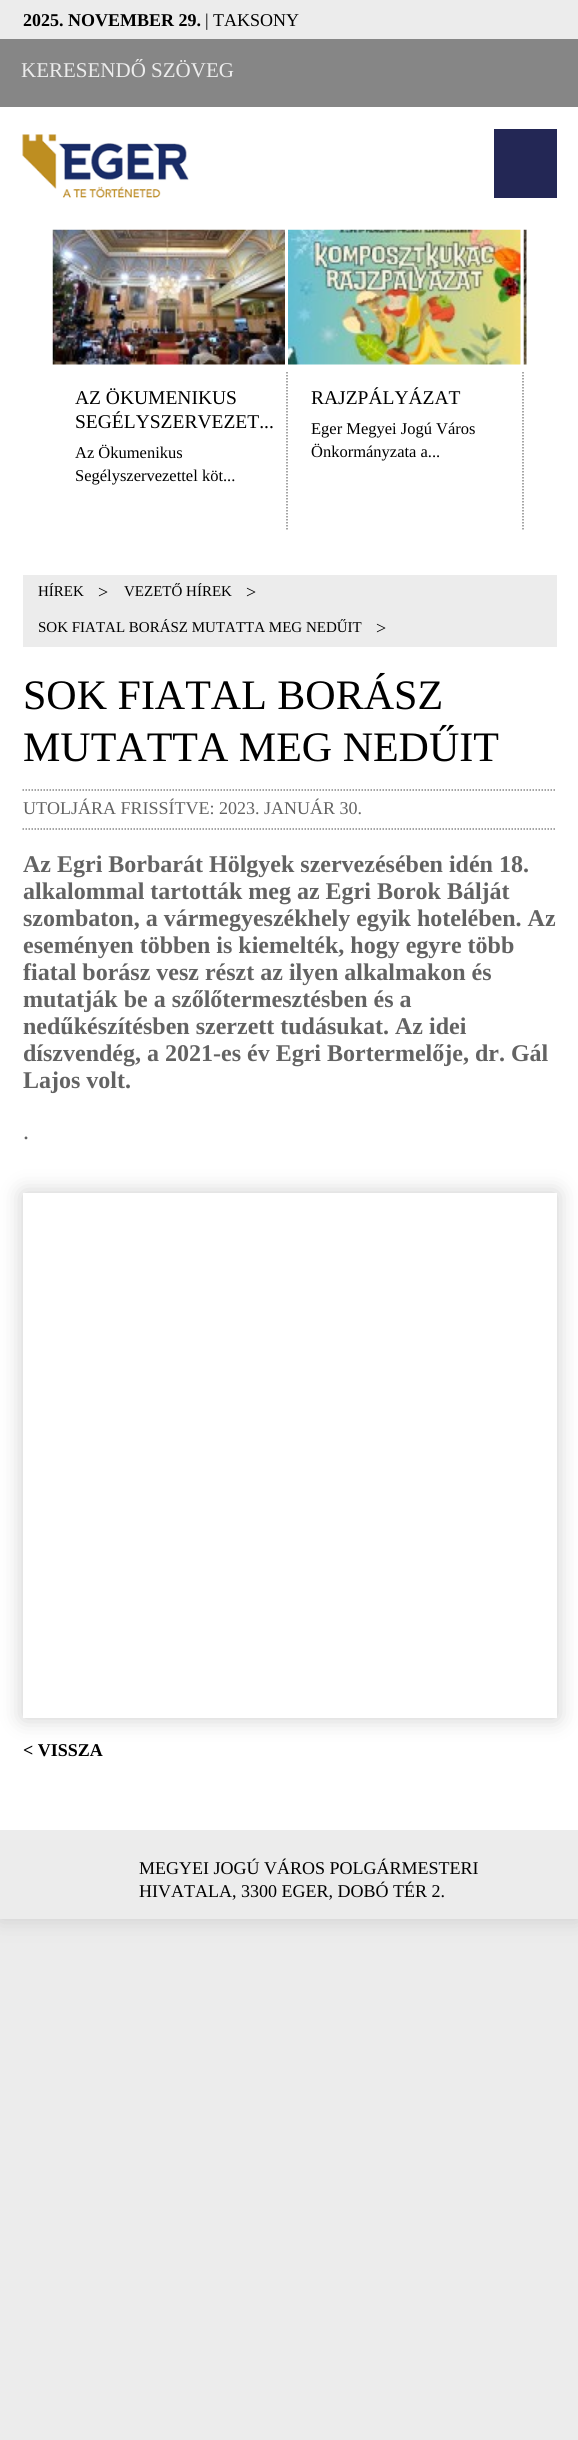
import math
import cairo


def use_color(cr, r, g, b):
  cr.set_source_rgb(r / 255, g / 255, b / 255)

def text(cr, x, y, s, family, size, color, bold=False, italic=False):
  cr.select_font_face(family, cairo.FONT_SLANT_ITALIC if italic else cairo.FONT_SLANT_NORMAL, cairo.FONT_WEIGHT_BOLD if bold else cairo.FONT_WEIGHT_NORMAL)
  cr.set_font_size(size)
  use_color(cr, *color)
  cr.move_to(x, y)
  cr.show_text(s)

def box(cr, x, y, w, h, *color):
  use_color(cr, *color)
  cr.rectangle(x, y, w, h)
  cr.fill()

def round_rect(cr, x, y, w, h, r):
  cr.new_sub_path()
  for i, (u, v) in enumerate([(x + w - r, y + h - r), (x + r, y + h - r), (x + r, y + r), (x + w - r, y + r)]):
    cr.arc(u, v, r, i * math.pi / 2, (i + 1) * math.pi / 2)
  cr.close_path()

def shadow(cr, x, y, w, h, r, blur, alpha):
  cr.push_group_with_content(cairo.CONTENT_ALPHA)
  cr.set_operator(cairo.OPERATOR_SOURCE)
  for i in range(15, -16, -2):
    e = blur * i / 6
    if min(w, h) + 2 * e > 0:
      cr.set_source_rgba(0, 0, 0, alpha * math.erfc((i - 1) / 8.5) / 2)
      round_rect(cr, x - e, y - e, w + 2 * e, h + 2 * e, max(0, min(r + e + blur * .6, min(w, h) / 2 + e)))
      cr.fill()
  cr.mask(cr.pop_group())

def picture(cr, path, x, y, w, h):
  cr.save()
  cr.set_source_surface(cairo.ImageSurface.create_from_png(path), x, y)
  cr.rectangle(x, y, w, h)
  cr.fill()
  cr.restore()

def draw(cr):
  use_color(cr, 236, 236, 236)
  cr.paint()
  use_color(cr, 204, 204, 204)
  shadow(cr, 0, 107, 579, 1812, 0, 11, 1)
  box(cr, 0, 39, 578, 68, 134, 134, 134)
  box(cr, 0, 107, 578, 1723, 255, 255, 255)
  picture(cr, "img_01.png", 22, 134, 167, 64)
  box(cr, 494, 129, 63, 69, 35, 39, 85)
  picture(cr, "img_02.png", 523, 229, 4, 136)
  picture(cr, "img_03.png", 52, 229, 233, 136)
  cr.new_path()
  cr.move_to(287, 372)
  cr.line_to(287, 529.5)
  use_color(cr, 136, 136, 136)
  cr.set_line_width(1.5)
  cr.set_dash([1.5, 1.5])
  cr.stroke()
  picture(cr, "img_04.png", 288, 229, 233, 136)
  cr.new_path()
  cr.move_to(523, 372)
  cr.line_to(523, 529.5)
  cr.stroke()
  box(cr, 23, 575, 534, 72, 236, 236, 236)
  cr.new_path()
  cr.move_to(22.5, 790)
  cr.line_to(556.5, 790)
  use_color(cr, 136, 136, 136)
  cr.stroke()
  cr.new_path()
  cr.move_to(22.5, 829)
  cr.line_to(556.5, 829)
  cr.stroke()
  cr.save()
  cr.set_fill_rule(cairo.FILL_RULE_EVEN_ODD)
  cr.new_path()
  cr.move_to(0, 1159)
  cr.line_to(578, 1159)
  cr.line_to(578, 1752)
  cr.line_to(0, 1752)
  cr.close_path()
  cr.move_to(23, 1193)
  cr.line_to(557, 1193)
  cr.line_to(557, 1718)
  cr.line_to(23, 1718)
  cr.close_path()
  cr.clip()
  use_color(cr, 204, 204, 204)
  shadow(cr, 23, 1193, 534, 525, 0, 11, 1)
  cr.restore()
  box(cr, 0, 1830, 578, 89, 236, 236, 236)
  text(cr, 23, 26, "2025. NOVEMBER 29.", "Liberation Serif", 18, (0, 0, 0), bold=True)
  text(cr, 205, 26, "| TAKSONY", "Liberation Serif", 18, (0, 0, 0))
  text(cr, 21, 77, "KERESENDŐ SZÖVEG", "Liberation Serif", 21, (236, 236, 236))
  text(cr, 75, 404, "AZ ÖKUMENIKUS", "Liberation Serif", 19.5, (0, 0, 0))
  text(cr, 75, 428, "SEGÉLYSZERVEZET...", "Liberation Serif", 19.5, (0, 0, 0))
  text(cr, 75, 458, "Az Ökumenikus", "Liberation Serif", 16.5, (0, 0, 0))
  text(cr, 75, 481, "Segélyszervezettel köt...", "Liberation Serif", 16.5, (0, 0, 0))
  text(cr, 311, 404, "RAJZPÁLYÁZAT", "Liberation Serif", 19.5, (0, 0, 0))
  text(cr, 311, 434, "Eger Megyei Jogú Város", "Liberation Serif", 16.5, (0, 0, 0))
  text(cr, 311, 457, "Önkormányzata a...", "Liberation Serif", 16.5, (0, 0, 0))
  text(cr, 38, 596, "HÍREK", "Liberation Serif", 15, (0, 0, 0))
  text(cr, 98, 598, ">", "Liberation Serif", 18, (0, 0, 0))
  text(cr, 124, 596, "VEZETŐ HÍREK", "Liberation Serif", 15, (0, 0, 0))
  text(cr, 246, 598, ">", "Liberation Serif", 18, (0, 0, 0))
  text(cr, 38, 632, "SOK FIATAL BORÁSZ MUTATTA MEG NEDŰIT", "Liberation Serif", 15, (0, 0, 0))
  text(cr, 376, 634, ">", "Liberation Serif", 18, (0, 0, 0))
  text(cr, 23, 709, "SOK FIATAL BORÁSZ", "Liberation Serif", 42, (0, 0, 0))
  text(cr, 23, 761, "MUTATTA MEG NEDŰIT", "Liberation Serif", 42, (0, 0, 0))
  text(cr, 23, 814, "UTOLJÁRA FRISSÍTVE: 2023. JANUÁR 30.", "Liberation Serif", 18, (99, 99, 99))
  text(cr, 23, 872, "Az Egri Borbarát Hölgyek szervezésében idén 18.", "Liberation Serif", 24, (99, 99, 99), bold=True)
  text(cr, 23, 899, "alkalommal tartották meg az Egri Borok Bálját", "Liberation Serif", 24, (99, 99, 99), bold=True)
  text(cr, 23, 926, "szombaton, a vármegyeszékhely egyik hotelében. Az", "Liberation Serif", 24, (99, 99, 99), bold=True)
  text(cr, 23, 953, "eseményen többen is kiemelték, hogy egyre több", "Liberation Serif", 24, (99, 99, 99), bold=True)
  text(cr, 23, 980, "fiatal borász vesz részt az ilyen alkalmakon és", "Liberation Serif", 24, (99, 99, 99), bold=True)
  text(cr, 23, 1007, "mutatják be a szőlőtermesztésben és a", "Liberation Serif", 24, (99, 99, 99), bold=True)
  text(cr, 23, 1034, "nedűkészítésben szerzett tudásukat. Az idei", "Liberation Serif", 24, (99, 99, 99), bold=True)
  text(cr, 23, 1061, "díszvendég, a 2021-es év Egri Bortermelője, dr. Gál", "Liberation Serif", 24, (99, 99, 99), bold=True)
  text(cr, 23, 1088, "Lajos volt.", "Liberation Serif", 24, (99, 99, 99), bold=True)
  text(cr, 23, 1139, ".", "Liberation Serif", 24, (99, 99, 99))
  text(cr, 23, 1756, "< VISSZA", "Liberation Serif", 18, (0, 0, 0), bold=True)
  text(cr, 139, 1874, "MEGYEI JOGÚ VÁROS POLGÁRMESTERI", "Liberation Serif", 18, (0, 0, 0))
  text(cr, 139, 1897, "HIVATALA, 3300 EGER, DOBÓ TÉR 2.", "Liberation Serif", 18, (0, 0, 0))


surface = cairo.ImageSurface(cairo.FORMAT_RGB24, 578, 2440)
cr = cairo.Context(surface)
options = cairo.FontOptions()
options.set_hint_metrics(cairo.HINT_METRICS_OFF)
options.set_hint_style(cairo.HINT_STYLE_NONE)
cr.set_font_options(options)
cr.set_miter_limit(4)
draw(cr)
surface.write_to_png("out.png")
